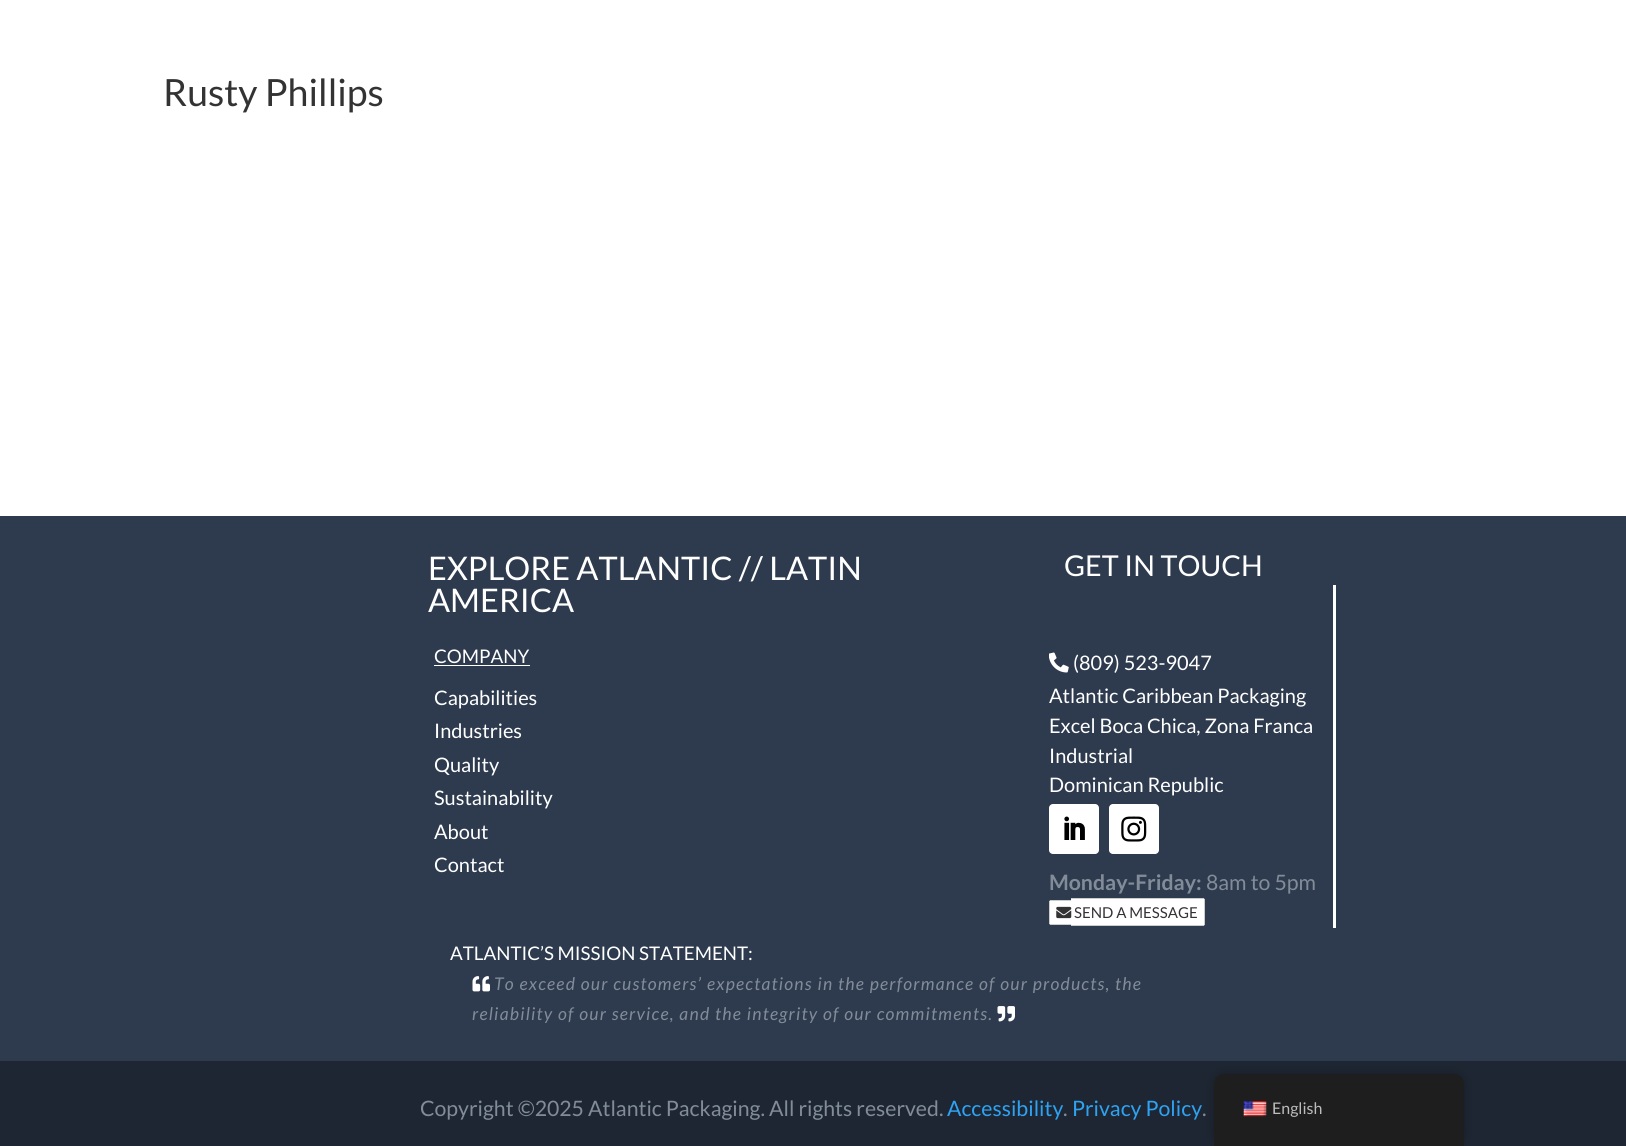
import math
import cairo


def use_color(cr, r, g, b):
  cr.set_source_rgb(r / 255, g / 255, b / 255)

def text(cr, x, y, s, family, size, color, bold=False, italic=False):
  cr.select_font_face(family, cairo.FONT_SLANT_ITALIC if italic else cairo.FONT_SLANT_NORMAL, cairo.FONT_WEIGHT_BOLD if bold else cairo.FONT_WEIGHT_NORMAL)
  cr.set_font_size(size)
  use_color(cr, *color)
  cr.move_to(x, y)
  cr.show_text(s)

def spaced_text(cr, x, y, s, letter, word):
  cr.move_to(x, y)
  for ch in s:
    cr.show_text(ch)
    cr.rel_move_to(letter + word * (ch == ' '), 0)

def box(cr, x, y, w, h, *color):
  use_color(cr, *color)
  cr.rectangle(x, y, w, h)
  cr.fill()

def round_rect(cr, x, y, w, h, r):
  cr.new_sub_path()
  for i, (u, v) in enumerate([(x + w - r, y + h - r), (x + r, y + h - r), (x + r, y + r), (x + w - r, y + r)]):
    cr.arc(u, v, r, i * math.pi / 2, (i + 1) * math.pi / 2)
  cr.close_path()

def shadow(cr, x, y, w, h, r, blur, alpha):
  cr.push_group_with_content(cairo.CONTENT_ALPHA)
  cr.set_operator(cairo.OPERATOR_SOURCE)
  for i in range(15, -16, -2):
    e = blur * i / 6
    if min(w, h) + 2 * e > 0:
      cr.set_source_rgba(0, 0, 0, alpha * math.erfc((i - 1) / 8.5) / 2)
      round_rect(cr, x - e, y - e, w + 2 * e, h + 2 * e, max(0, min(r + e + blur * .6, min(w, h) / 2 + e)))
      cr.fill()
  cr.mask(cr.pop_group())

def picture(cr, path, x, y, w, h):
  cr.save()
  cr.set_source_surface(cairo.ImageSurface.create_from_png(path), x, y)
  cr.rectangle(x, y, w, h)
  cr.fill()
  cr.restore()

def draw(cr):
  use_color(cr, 255, 255, 255)
  cr.paint()
  box(cr, 0, 516, 1626, 545, 46, 59, 78)
  box(cr, 434, 665, 96, 1, 255, 255, 255)
  box(cr, 1333, 585, 3, 343, 255, 255, 255)
  picture(cr, "img_01.png", 1049, 652, 20, 21)
  round_rect(cr, 1049, 804, 50, 50, 4)
  cr.fill()
  picture(cr, "img_02.png", 1064, 816, 21, 24)
  round_rect(cr, 1109, 804, 50, 50, 4)
  cr.fill()
  picture(cr, "img_03.png", 1121, 816, 26, 26)
  cr.new_path()
  cr.move_to(1051.5, 900)
  cr.line_to(1071, 900)
  cr.line_to(1071, 925)
  cr.line_to(1051.5, 925)
  cr.curve_to(1050, 925, 1049, 924, 1049, 922.5)
  cr.line_to(1049, 902.5)
  cr.curve_to(1049, 901, 1050, 900, 1051.5, 900)
  cr.close_path()
  cr.fill()
  box(cr, 1050, 900, 21, 1, 204, 204, 204)
  box(cr, 1050, 924, 21, 1, 204, 204, 204)
  box(cr, 1049, 901, 1, 23, 204, 204, 204)
  use_color(cr, 255, 255, 255)
  cr.new_path()
  cr.move_to(1071, 898)
  cr.line_to(1202.5, 898)
  cr.curve_to(1204, 898, 1205, 899, 1205, 900.5)
  cr.line_to(1205, 923.5)
  cr.curve_to(1205, 925, 1204, 926, 1202.5, 926)
  cr.line_to(1071, 926)
  cr.close_path()
  cr.fill()
  box(cr, 1071, 898, 133, 1, 204, 204, 204)
  box(cr, 1204, 899, 1, 26, 204, 204, 204)
  box(cr, 1071, 925, 133, 1, 204, 204, 204)
  picture(cr, "img_04.png", 1056, 906, 16, 13)
  picture(cr, "img_05.png", 472, 976, 18, 16)
  picture(cr, "img_06.png", 997, 1006, 18, 16)
  box(cr, 0, 1061, 1626, 85, 30, 38, 51)
  use_color(cr, 0, 0, 0)
  shadow(cr, 1214, 1074, 250, 72, 10, 5, 0.25)
  use_color(cr, 30, 30, 30)
  cr.new_path()
  cr.move_to(1224, 1074)
  cr.line_to(1454, 1074)
  cr.curve_to(1459.5, 1074, 1464, 1078.5, 1464, 1084)
  cr.line_to(1464, 1146)
  cr.line_to(1214, 1146)
  cr.line_to(1214, 1084)
  cr.curve_to(1214, 1078.5, 1218.5, 1074, 1224, 1074)
  cr.close_path()
  cr.fill()
  picture(cr, "img_07.png", 1243, 1101, 24, 16)
  text(cr, 163, 106, "Rusty Phillips", "Lato", 37.5, (51, 51, 51))
  text(cr, 428, 580, "EXPLORE ATLANTIC // LATIN", "Lato", 32.5, (255, 255, 255))
  text(cr, 428, 612, "AMERICA", "Lato", 32.5, (255, 255, 255))
  text(cr, 1064, 576, "GET IN TOUCH", "Lato", 28.75, (255, 255, 255))
  text(cr, 434, 663, "COMPANY", "Lato", 18.75, (255, 255, 255))
  text(cr, 434, 705, "Capabilities", "Lato", 20, (255, 255, 255))
  text(cr, 434, 738, "Industries", "Lato", 20, (255, 255, 255))
  text(cr, 434, 772, "Quality", "Lato", 20, (255, 255, 255))
  text(cr, 434, 805, "Sustainability", "Lato", 20, (255, 255, 255))
  text(cr, 434, 839, "About", "Lato", 20, (255, 255, 255))
  text(cr, 434, 872, "Contact", "Lato", 20, (255, 255, 255))
  text(cr, 1073, 670, "(809) 523-9047", "Lato", 20, (255, 255, 255))
  text(cr, 1049, 703, "Atlantic Caribbean Packaging", "Lato", 20, (255, 255, 255))
  text(cr, 1049, 733, "Excel Boca Chica, Zona Franca", "Lato", 20, (255, 255, 255))
  text(cr, 1049, 763, "Industrial", "Lato", 20, (255, 255, 255))
  text(cr, 1049, 792, "Dominican Republic", "Lato", 20, (255, 255, 255))
  text(cr, 1049, 890, "Monday-Friday:", "Lato", 21.25, (130, 140, 153), bold=True)
  text(cr, 1206, 890, "8am to 5pm", "Lato", 21.25, (130, 140, 153))
  text(cr, 1074, 918, "SEND A MESSAGE", "Lato", 15, (51, 51, 51))
  text(cr, 450, 960, "ATLANTIC’S MISSION STATEMENT:", "Lato", 18.75, (255, 255, 255))
  cr.select_font_face("Lato", cairo.FONT_SLANT_ITALIC)
  cr.set_font_size(17.5)
  use_color(cr, 130, 140, 153)
  spaced_text(cr, 494, 990, "To exceed our customers’ expectations in the performance of our products, the", 1.25, 0)
  spaced_text(cr, 472, 1020, "reliability of our service, and the integrity of our commitments.", 1.25, 0)
  text(cr, 420, 1116, "Copyright ©2025 Atlantic Packaging. All rights reserved.", "Lato", 21.25, (130, 140, 153))
  text(cr, 947, 1116, "Accessibility", "Lato", 21.25, (46, 163, 242))
  text(cr, 1063, 1116, ".", "Lato", 21.25, (130, 140, 153))
  text(cr, 1072, 1116, "Privacy Policy", "Lato", 21.25, (46, 163, 242))
  text(cr, 1202, 1116, ".", "Lato", 21.25, (130, 140, 153))
  text(cr, 1272, 1114, "English", "Lato", 16, (189, 189, 189))


surface = cairo.ImageSurface(cairo.FORMAT_RGB24, 1626, 1146)
cr = cairo.Context(surface)
options = cairo.FontOptions()
options.set_hint_metrics(cairo.HINT_METRICS_OFF)
options.set_hint_style(cairo.HINT_STYLE_NONE)
cr.set_font_options(options)
cr.set_miter_limit(4)
draw(cr)
surface.write_to_png("out.png")
